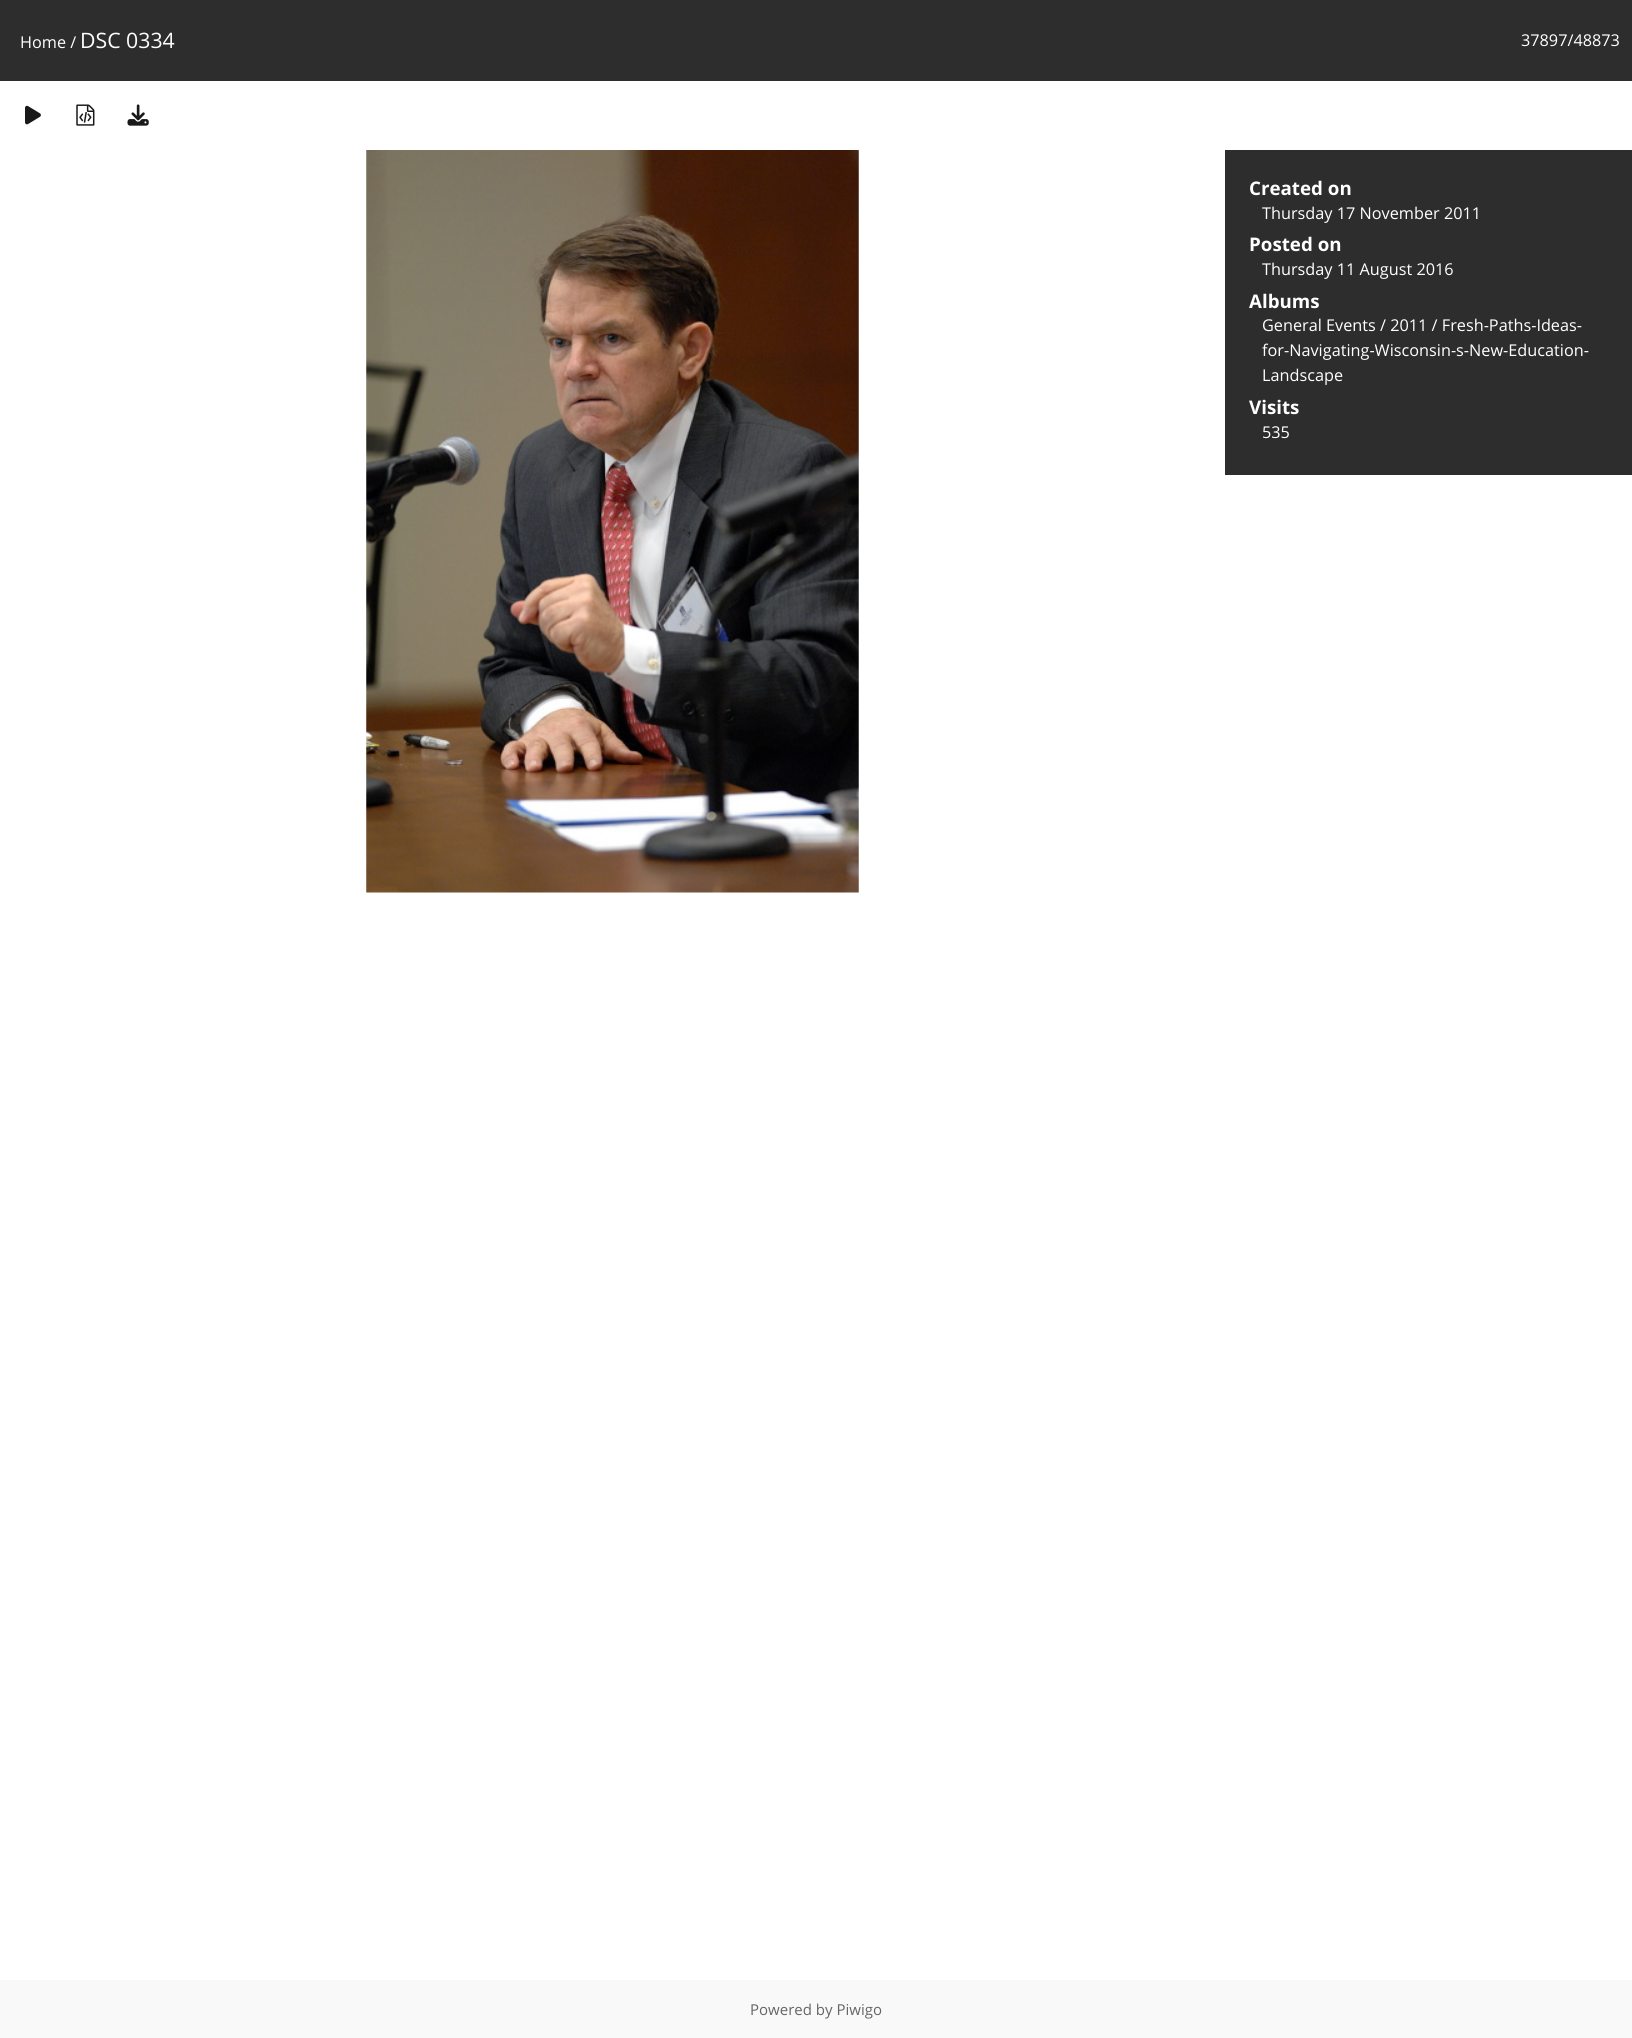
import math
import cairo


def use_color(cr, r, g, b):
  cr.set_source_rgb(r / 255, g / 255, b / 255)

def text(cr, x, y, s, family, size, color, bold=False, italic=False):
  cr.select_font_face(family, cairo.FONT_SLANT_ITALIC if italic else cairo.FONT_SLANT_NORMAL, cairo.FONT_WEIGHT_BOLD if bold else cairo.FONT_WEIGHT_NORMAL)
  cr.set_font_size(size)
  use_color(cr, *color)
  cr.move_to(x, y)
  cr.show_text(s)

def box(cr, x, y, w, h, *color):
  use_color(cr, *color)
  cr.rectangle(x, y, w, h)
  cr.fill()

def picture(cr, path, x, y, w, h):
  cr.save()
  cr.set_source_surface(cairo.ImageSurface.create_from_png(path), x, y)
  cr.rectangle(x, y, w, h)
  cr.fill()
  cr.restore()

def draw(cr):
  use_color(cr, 255, 255, 255)
  cr.paint()
  box(cr, 0, 0, 1632, 81, 45, 45, 45)
  picture(cr, "img_01.png", 25, 105, 16, 20)
  picture(cr, "img_02.png", 76, 104, 19, 22)
  picture(cr, "img_03.png", 127, 104, 22, 22)
  picture(cr, "img_04.png", 366, 150, 493, 743)
  box(cr, 1225, 150, 407, 325, 45, 45, 45)
  box(cr, 0, 1980, 1632, 58, 249, 249, 249)
  text(cr, 20, 48, "Home /", "Open Sans", 16.25, (255, 255, 255))
  text(cr, 80, 48, "DSC 0334", "Open Sans", 21.25, (255, 255, 255))
  text(cr, 1521, 46, "37897/48873", "Open Sans", 16.25, (255, 255, 255))
  text(cr, 1249, 195, "Created on", "Open Sans", 18.75, (255, 255, 255), bold=True)
  text(cr, 1262, 219, "Thursday 17 November 2011", "Open Sans", 16.25, (255, 255, 255))
  text(cr, 1249, 251, "Posted on", "Open Sans", 18.75, (255, 255, 255), bold=True)
  text(cr, 1262, 275, "Thursday 11 August 2016", "Open Sans", 16.25, (255, 255, 255))
  text(cr, 1249, 308, "Albums", "Open Sans", 18.75, (255, 255, 255), bold=True)
  text(cr, 1262, 331, "General Events / 2011 / Fresh-Paths-Ideas-", "Open Sans", 16.25, (255, 255, 255))
  text(cr, 1262, 356, "for-Navigating-Wisconsin-s-New-Education-", "Open Sans", 16.25, (255, 255, 255))
  text(cr, 1262, 381, "Landscape", "Open Sans", 16.25, (255, 255, 255))
  text(cr, 1249, 414, "Visits", "Open Sans", 18.75, (255, 255, 255), bold=True)
  text(cr, 1262, 438, "535", "Open Sans", 16.25, (255, 255, 255))
  text(cr, 750, 2015, "Powered by Piwigo", "Open Sans", 15, (102, 102, 102))


surface = cairo.ImageSurface(cairo.FORMAT_RGB24, 1632, 2038)
cr = cairo.Context(surface)
options = cairo.FontOptions()
options.set_hint_metrics(cairo.HINT_METRICS_OFF)
options.set_hint_style(cairo.HINT_STYLE_NONE)
cr.set_font_options(options)
cr.set_miter_limit(4)
draw(cr)
surface.write_to_png("out.png")
